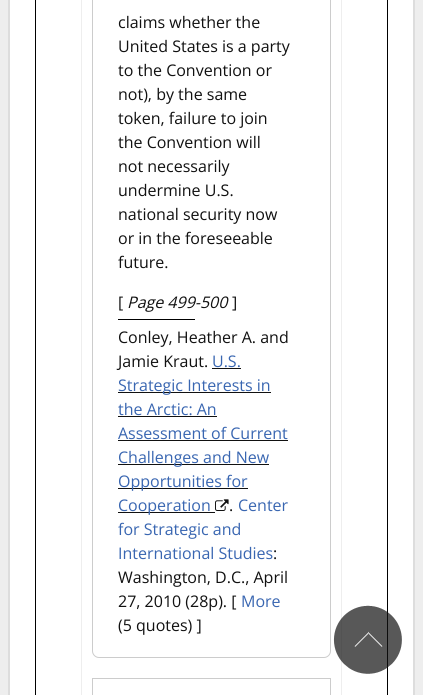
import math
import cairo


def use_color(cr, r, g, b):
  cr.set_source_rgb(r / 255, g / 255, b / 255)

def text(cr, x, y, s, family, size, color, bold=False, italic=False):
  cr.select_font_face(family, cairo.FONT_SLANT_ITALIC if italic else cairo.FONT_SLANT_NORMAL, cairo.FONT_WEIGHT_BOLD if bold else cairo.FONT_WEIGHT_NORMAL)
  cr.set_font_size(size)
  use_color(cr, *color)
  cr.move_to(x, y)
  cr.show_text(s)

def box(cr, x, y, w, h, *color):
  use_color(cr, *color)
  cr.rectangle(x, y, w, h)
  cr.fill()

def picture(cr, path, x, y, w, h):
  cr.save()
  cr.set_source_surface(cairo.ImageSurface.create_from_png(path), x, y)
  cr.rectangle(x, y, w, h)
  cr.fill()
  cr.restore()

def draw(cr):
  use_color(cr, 238, 238, 238)
  cr.paint()
  box(cr, 10, 0, 403, 695, 255, 255, 255)
  box(cr, 413, 0, 2, 695, 221, 221, 221)
  box(cr, 8, 0, 2, 695, 221, 221, 221)
  cr.rectangle(35.5, -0.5, 352, 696)
  use_color(cr, 0, 0, 0)
  cr.set_line_width(1)
  cr.stroke()
  cr.rectangle(81.5, -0.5, 260, 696)
  use_color(cr, 238, 238, 238)
  cr.stroke()
  cr.new_path()
  cr.move_to(92.5, -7.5)
  cr.line_to(330.5, -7.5)
  cr.line_to(330.5, 651)
  cr.curve_to(330.5, 654.5, 327.5, 657.5, 324, 657.5)
  cr.line_to(99, 657.5)
  cr.curve_to(95.5, 657.5, 92.5, 654.5, 92.5, 651)
  cr.close_path()
  use_color(cr, 204, 204, 204)
  cr.stroke()
  box(cr, 118, 319, 77, 1, 0, 0, 0)
  box(cr, 212, 368, 29, 1, 17, 17, 17)
  box(cr, 118, 392, 153, 1, 17, 17, 17)
  box(cr, 118, 416, 99, 1, 17, 17, 17)
  box(cr, 118, 440, 170, 1, 17, 17, 17)
  box(cr, 118, 464, 151, 1, 17, 17, 17)
  box(cr, 118, 488, 130, 1, 17, 17, 17)
  box(cr, 118, 512, 97, 1, 17, 17, 17)
  picture(cr, "img_01.png", 215, 499, 14, 12)
  cr.rectangle(92.5, 678.5, 238, 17)
  use_color(cr, 204, 204, 204)
  cr.stroke()
  picture(cr, "img_02.png", 333, 605, 69, 69)
  text(cr, 118, 28, "claims whether the", "Open Sans", 16, (17, 17, 17))
  text(cr, 118, 52, "United States is a party", "Open Sans", 16, (17, 17, 17))
  text(cr, 118, 76, "to the Convention or", "Open Sans", 16, (17, 17, 17))
  text(cr, 118, 100, "not), by the same", "Open Sans", 16, (17, 17, 17))
  text(cr, 118, 124, "token, failure to join", "Open Sans", 16, (17, 17, 17))
  text(cr, 118, 148, "the Convention will", "Open Sans", 16, (17, 17, 17))
  text(cr, 118, 172, "not necessarily", "Open Sans", 16, (17, 17, 17))
  text(cr, 118, 196, "undermine U.S.", "Open Sans", 16, (17, 17, 17))
  text(cr, 118, 220, "national security now", "Open Sans", 16, (17, 17, 17))
  text(cr, 118, 244, "or in the foreseeable", "Open Sans", 16, (17, 17, 17))
  text(cr, 118, 268, "future.", "Open Sans", 16, (17, 17, 17))
  text(cr, 118, 308, "[", "Open Sans", 16, (17, 17, 17))
  text(cr, 127, 308, "Page 499-500", "Open Sans", 16, (17, 17, 17), italic=True)
  text(cr, 232, 308, "]", "Open Sans", 16, (17, 17, 17))
  text(cr, 118, 343, "Conley, Heather A. and", "Open Sans", 16, (17, 17, 17))
  text(cr, 118, 367, "Jamie Kraut.", "Open Sans", 16, (17, 17, 17))
  text(cr, 212, 367, "U.S.", "Open Sans", 16, (57, 102, 177))
  text(cr, 118, 391, "Strategic Interests in", "Open Sans", 16, (57, 102, 177))
  text(cr, 118, 415, "the Arctic: An", "Open Sans", 16, (57, 102, 177))
  text(cr, 118, 439, "Assessment of Current", "Open Sans", 16, (57, 102, 177))
  text(cr, 118, 463, "Challenges and New", "Open Sans", 16, (57, 102, 177))
  text(cr, 118, 487, "Opportunities for", "Open Sans", 16, (57, 102, 177))
  text(cr, 118, 511, "Cooperation", "Open Sans", 16, (57, 102, 177))
  text(cr, 229, 511, ".", "Open Sans", 16, (17, 17, 17))
  text(cr, 238, 511, "Center", "Open Sans", 16, (57, 102, 177))
  text(cr, 118, 535, "for Strategic and", "Open Sans", 16, (57, 102, 177))
  text(cr, 118, 559, "International Studies", "Open Sans", 16, (57, 102, 177))
  text(cr, 273, 559, ":", "Open Sans", 16, (17, 17, 17))
  text(cr, 118, 583, "Washington, D.C., April", "Open Sans", 16, (17, 17, 17))
  text(cr, 118, 607, "27, 2010 (28p). [", "Open Sans", 16, (17, 17, 17))
  text(cr, 241, 607, "More", "Open Sans", 16, (57, 102, 177))
  text(cr, 118, 631, "(5 quotes) ]", "Open Sans", 16, (17, 17, 17))


surface = cairo.ImageSurface(cairo.FORMAT_RGB24, 423, 695)
cr = cairo.Context(surface)
options = cairo.FontOptions()
options.set_hint_metrics(cairo.HINT_METRICS_OFF)
options.set_hint_style(cairo.HINT_STYLE_NONE)
cr.set_font_options(options)
cr.set_miter_limit(4)
draw(cr)
surface.write_to_png("out.png")
